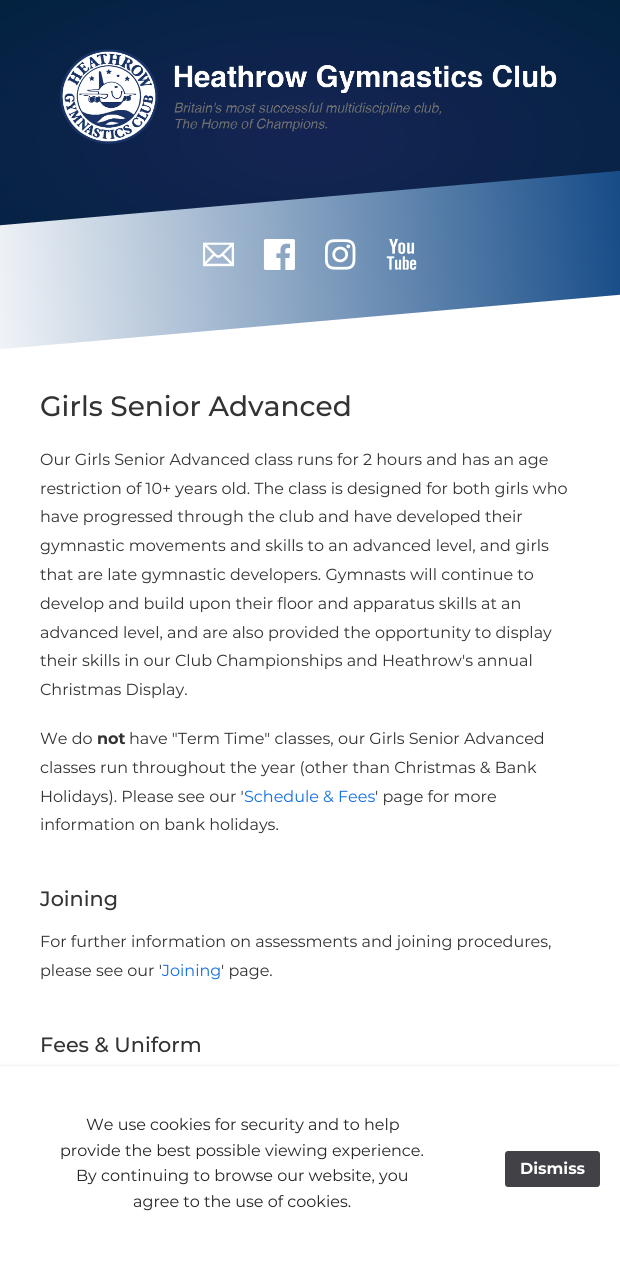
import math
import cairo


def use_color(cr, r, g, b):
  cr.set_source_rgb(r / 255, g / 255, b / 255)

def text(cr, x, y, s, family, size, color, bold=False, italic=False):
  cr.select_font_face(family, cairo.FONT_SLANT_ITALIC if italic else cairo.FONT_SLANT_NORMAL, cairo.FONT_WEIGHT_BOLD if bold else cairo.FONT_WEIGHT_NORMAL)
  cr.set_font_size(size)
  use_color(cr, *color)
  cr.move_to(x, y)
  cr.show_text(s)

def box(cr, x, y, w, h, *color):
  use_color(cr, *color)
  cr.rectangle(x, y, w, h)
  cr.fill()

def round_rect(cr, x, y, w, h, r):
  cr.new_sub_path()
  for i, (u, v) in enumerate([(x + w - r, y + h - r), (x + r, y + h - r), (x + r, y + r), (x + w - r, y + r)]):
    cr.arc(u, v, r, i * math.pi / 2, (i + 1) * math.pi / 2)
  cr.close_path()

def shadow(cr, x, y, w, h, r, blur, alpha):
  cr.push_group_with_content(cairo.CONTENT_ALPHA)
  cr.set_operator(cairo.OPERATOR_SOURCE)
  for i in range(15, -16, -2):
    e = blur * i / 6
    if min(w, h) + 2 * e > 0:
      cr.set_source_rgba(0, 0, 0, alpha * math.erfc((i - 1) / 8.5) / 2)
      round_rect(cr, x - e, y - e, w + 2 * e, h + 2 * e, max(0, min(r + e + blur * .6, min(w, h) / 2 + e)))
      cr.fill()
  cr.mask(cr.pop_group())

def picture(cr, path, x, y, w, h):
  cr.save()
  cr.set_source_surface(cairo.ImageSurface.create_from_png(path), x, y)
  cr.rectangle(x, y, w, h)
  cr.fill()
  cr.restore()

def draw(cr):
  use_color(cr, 255, 255, 255)
  cr.paint()
  gradient = cairo.RadialGradient(0, 0, 0, 0, 0, 1)
  gradient.set_matrix(cairo.Matrix(1 / 438, 0, 0, 1 / 197, -1 * 310 / 438, -1 * 140 / 197))
  gradient.add_color_stop_rgba(0.1, 0.078, 0.141, 0.322, 1)
  gradient.add_color_stop_rgba(1, 0.008, 0.133, 0.251, 1)
  cr.set_source(gradient)
  cr.rectangle(0, 0, 620, 226)
  cr.fill()
  picture(cr, "img_01.png", 60, 49, 497, 95)
  gradient = cairo.LinearGradient(-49, 291, 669, 229)
  gradient.add_color_stop_rgba(0, 1, 1, 1, 1)
  gradient.add_color_stop_rgba(1, 0.027, 0.251, 0.502, 1)
  cr.set_source(gradient)
  cr.new_path()
  cr.move_to(-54, 230)
  cr.line_to(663, 167)
  cr.line_to(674, 290)
  cr.line_to(-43, 353)
  cr.close_path()
  cr.fill()
  picture(cr, "img_02.png", 203, 242, 31, 25)
  picture(cr, "img_03.png", 263, 239, 32, 31)
  picture(cr, "img_04.png", 325, 239, 31, 31)
  picture(cr, "img_05.png", 386, 238, 31, 32)
  use_color(cr, 0, 0, 0)
  shadow(cr, -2, 1066, 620, 206, 0, 2, 0.1)
  box(cr, 0, 1066, 620, 206, 255, 255, 255)
  use_color(cr, 66, 65, 71)
  round_rect(cr, 505, 1151, 95, 36, 3)
  cr.fill()
  text(cr, 40, 416, "Girls Senior Advanced", "Montserrat Medium", 28, (51, 51, 51))
  text(cr, 40, 465, "Our Girls Senior Advanced class runs for 2 hours and has an age", "Montserrat", 16, (51, 51, 51))
  text(cr, 40, 494, "restriction of 10+ years old. The class is designed for both girls who", "Montserrat", 16, (51, 51, 51))
  text(cr, 40, 522, "have progressed through the club and have developed their", "Montserrat", 16, (51, 51, 51))
  text(cr, 40, 551, "gymnastic movements and skills to an advanced level, and girls", "Montserrat", 16, (51, 51, 51))
  text(cr, 40, 580, "that are late gymnastic developers. Gymnasts will continue to", "Montserrat", 16, (51, 51, 51))
  text(cr, 40, 609, "develop and build upon their floor and apparatus skills at an", "Montserrat", 16, (51, 51, 51))
  text(cr, 40, 638, "advanced level, and are also provided the opportunity to display", "Montserrat", 16, (51, 51, 51))
  text(cr, 40, 666, "their skills in our Club Championships and Heathrow's annual", "Montserrat", 16, (51, 51, 51))
  text(cr, 40, 695, "Christmas Display.", "Montserrat", 16, (51, 51, 51))
  text(cr, 40, 744, "We do", "Montserrat", 16, (51, 51, 51))
  text(cr, 97, 744, "not", "Montserrat", 16, (51, 51, 51), bold=True)
  text(cr, 129, 744, "have \"Term Time\" classes, our Girls Senior Advanced", "Montserrat", 16, (51, 51, 51))
  text(cr, 40, 773, "classes run throughout the year (other than Christmas & Bank", "Montserrat", 16, (51, 51, 51))
  text(cr, 40, 802, "Holidays). Please see our '", "Montserrat", 16, (51, 51, 51))
  text(cr, 244, 802, "Schedule & Fees", "Montserrat", 16, (18, 111, 226))
  text(cr, 375, 802, "' page for more", "Montserrat", 16, (51, 51, 51))
  text(cr, 40, 830, "information on bank holidays.", "Montserrat", 16, (51, 51, 51))
  text(cr, 40, 906, "Joining", "Montserrat Medium", 20.75, (51, 51, 51))
  text(cr, 40, 947, "For further information on assessments and joining procedures,", "Montserrat", 16, (51, 51, 51))
  text(cr, 40, 976, "please see our '", "Montserrat", 16, (51, 51, 51))
  text(cr, 162, 976, "Joining", "Montserrat", 16, (18, 111, 226))
  text(cr, 221, 976, "' page.", "Montserrat", 16, (51, 51, 51))
  text(cr, 40, 1052, "Fees & Uniform", "Montserrat Medium", 20.75, (51, 51, 51))
  text(cr, 86, 1130, "We use cookies for security and to help", "Montserrat", 16, (38, 38, 38))
  text(cr, 60, 1156, "provide the best possible viewing experience.", "Montserrat", 16, (38, 38, 38))
  text(cr, 76, 1181, "By continuing to browse our website, you", "Montserrat", 16, (38, 38, 38))
  text(cr, 133, 1207, "agree to the use of cookies.", "Montserrat", 16, (38, 38, 38))
  text(cr, 520, 1174, "Dismiss", "Montserrat", 16, (255, 255, 255), bold=True)


surface = cairo.ImageSurface(cairo.FORMAT_RGB24, 620, 1272)
cr = cairo.Context(surface)
options = cairo.FontOptions()
options.set_hint_metrics(cairo.HINT_METRICS_OFF)
options.set_hint_style(cairo.HINT_STYLE_NONE)
cr.set_font_options(options)
cr.set_miter_limit(4)
draw(cr)
surface.write_to_png("out.png")
